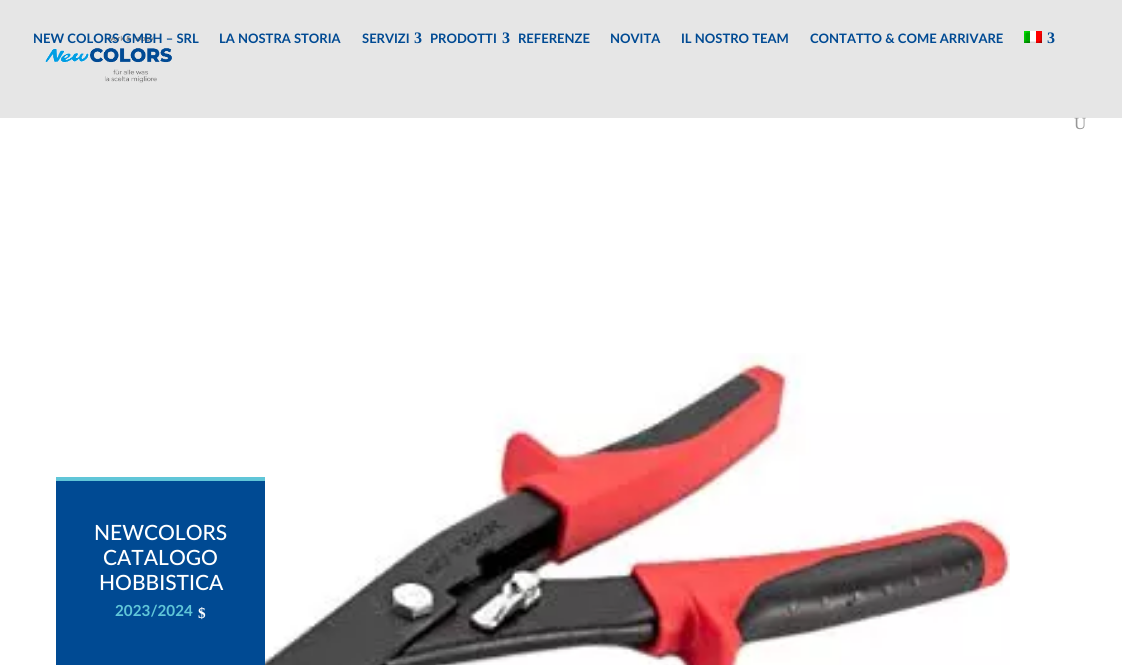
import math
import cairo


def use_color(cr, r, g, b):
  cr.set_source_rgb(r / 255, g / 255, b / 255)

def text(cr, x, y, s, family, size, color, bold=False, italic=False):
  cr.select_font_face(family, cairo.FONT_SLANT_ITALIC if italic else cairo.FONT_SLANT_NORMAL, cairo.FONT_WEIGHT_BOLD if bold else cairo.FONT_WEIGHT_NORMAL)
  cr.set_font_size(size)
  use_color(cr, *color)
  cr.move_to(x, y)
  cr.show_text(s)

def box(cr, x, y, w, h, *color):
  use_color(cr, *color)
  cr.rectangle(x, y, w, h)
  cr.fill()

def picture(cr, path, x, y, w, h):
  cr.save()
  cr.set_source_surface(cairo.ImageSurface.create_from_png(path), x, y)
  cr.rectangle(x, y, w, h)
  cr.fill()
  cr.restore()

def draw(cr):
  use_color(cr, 255, 255, 255)
  cr.paint()
  cr.set_source_rgba(0.902, 0.902, 0.902, 0.97)
  cr.rectangle(0, 0, 1122, 118)
  cr.fill()
  picture(cr, "img_01.png", 1024, 31, 18, 12)
  picture(cr, "img_02.png", 45, 35, 127, 48)
  picture(cr, "img_03.png", 253, 353, 757, 312)
  box(cr, 56, 481, 209, 184, 0, 74, 147)
  box(cr, 56, 477, 209, 4, 96, 198, 216)
  text(cr, 33, 43, "NEW COLORS GMBH – SRL", "Lato", 13, (0, 74, 147), bold=True)
  text(cr, 219, 43, "LA NOSTRA STORIA", "Lato", 13, (0, 74, 147), bold=True)
  text(cr, 362, 43, "SERVIZI", "Lato", 13, (0, 74, 147), bold=True)
  text(cr, 414, 43, "3", "Liberation Serif", 16, (0, 74, 147), bold=True)
  text(cr, 430, 43, "PRODOTTI", "Lato", 13, (0, 74, 147), bold=True)
  text(cr, 502, 43, "3", "Liberation Serif", 16, (0, 74, 147), bold=True)
  text(cr, 518, 43, "REFERENZE", "Lato", 13, (0, 74, 147), bold=True)
  text(cr, 610, 43, "NOVITA", "Lato", 13, (0, 74, 147), bold=True)
  text(cr, 681, 43, "IL NOSTRO TEAM", "Lato", 13, (0, 74, 147), bold=True)
  text(cr, 810, 43, "CONTATTO & COME ARRIVARE", "Lato", 13, (0, 74, 147), bold=True)
  text(cr, 1047, 43, "3", "Liberation Serif", 16, (0, 74, 147), bold=True)
  text(cr, 1074, 129, "U", "Liberation Serif", 17, (151, 151, 151))
  text(cr, 94, 540, "NEWCOLORS", "Lato Medium", 21, (255, 255, 255))
  text(cr, 103, 565, "CATALOGO", "Lato Medium", 21, (255, 255, 255))
  text(cr, 99, 590, "HOBBISTICA", "Lato Medium", 21, (255, 255, 255))
  text(cr, 115, 616, "2023/2024", "Lato", 15.25, (96, 198, 216), bold=True)
  text(cr, 198, 618, "$", "Liberation Serif", 15.25, (255, 255, 255), bold=True)


surface = cairo.ImageSurface(cairo.FORMAT_RGB24, 1122, 665)
cr = cairo.Context(surface)
options = cairo.FontOptions()
options.set_hint_metrics(cairo.HINT_METRICS_OFF)
options.set_hint_style(cairo.HINT_STYLE_NONE)
cr.set_font_options(options)
cr.set_miter_limit(4)
draw(cr)
surface.write_to_png("out.png")
